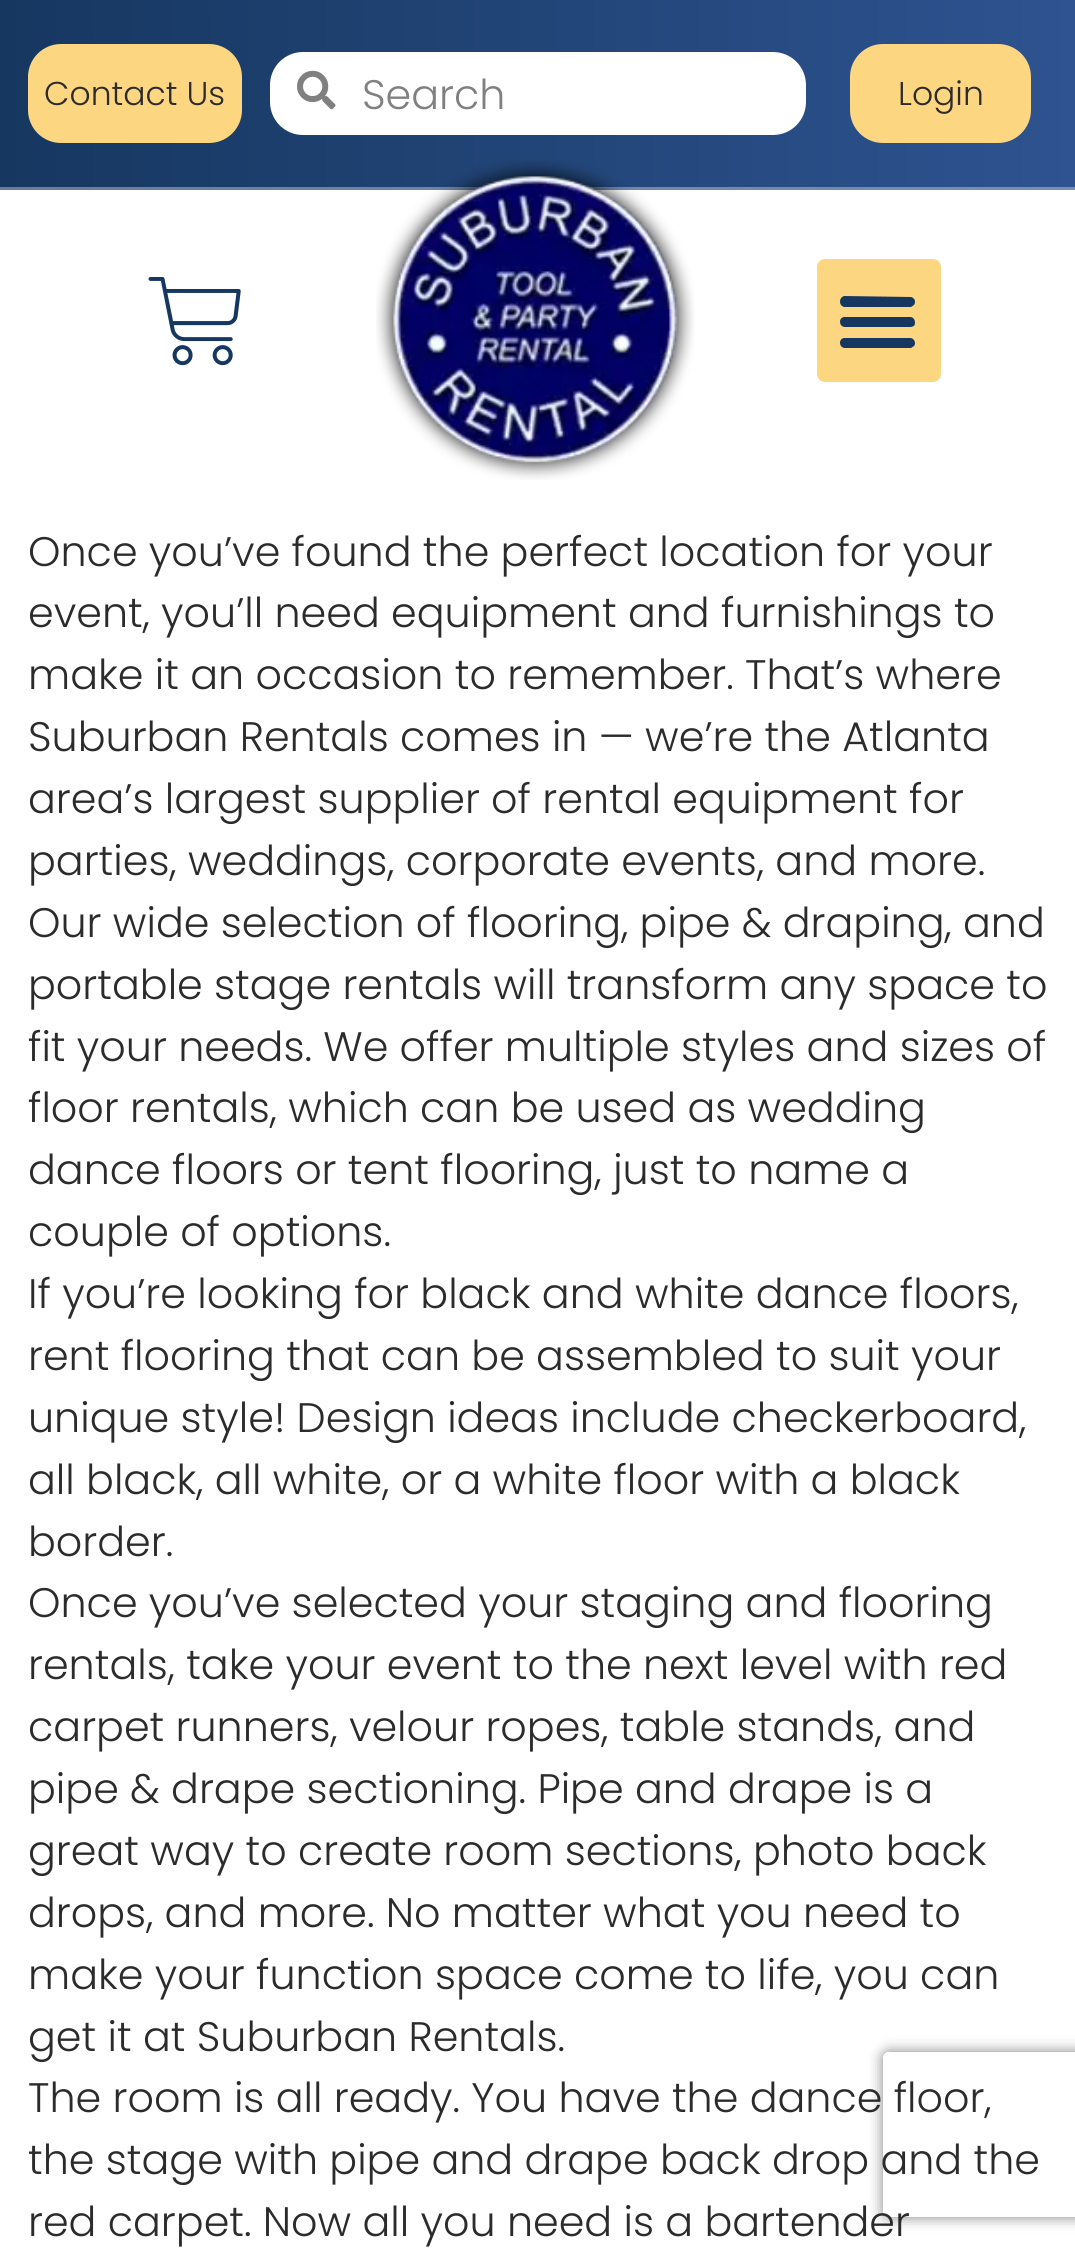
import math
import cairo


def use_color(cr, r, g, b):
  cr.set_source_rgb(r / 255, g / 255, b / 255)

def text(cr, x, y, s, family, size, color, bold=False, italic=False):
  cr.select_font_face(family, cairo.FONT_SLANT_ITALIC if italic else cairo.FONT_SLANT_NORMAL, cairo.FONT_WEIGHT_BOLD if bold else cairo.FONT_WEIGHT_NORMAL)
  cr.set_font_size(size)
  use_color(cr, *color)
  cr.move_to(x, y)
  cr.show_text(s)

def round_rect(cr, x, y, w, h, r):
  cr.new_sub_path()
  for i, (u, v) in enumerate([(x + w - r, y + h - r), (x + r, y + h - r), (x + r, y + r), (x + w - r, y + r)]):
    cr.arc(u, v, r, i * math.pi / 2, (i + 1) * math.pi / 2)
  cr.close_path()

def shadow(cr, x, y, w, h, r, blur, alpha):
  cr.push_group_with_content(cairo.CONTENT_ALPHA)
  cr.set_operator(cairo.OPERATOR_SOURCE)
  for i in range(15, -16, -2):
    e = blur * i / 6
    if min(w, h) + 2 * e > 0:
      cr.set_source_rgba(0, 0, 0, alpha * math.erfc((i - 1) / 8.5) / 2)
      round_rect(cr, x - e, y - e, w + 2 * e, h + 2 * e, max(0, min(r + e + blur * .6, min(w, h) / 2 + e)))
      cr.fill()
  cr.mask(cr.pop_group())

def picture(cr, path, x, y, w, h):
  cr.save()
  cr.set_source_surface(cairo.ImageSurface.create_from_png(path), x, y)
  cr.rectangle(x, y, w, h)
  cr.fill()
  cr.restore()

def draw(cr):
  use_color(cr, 255, 255, 255)
  cr.paint()
  gradient = cairo.LinearGradient(0, 94, 1075, 93)
  gradient.add_color_stop_rgba(0, 0.086, 0.216, 0.376, 1)
  gradient.add_color_stop_rgba(1, 0.18, 0.325, 0.565, 1)
  cr.set_source(gradient)
  cr.rectangle(0, 0, 1075, 187)
  cr.fill()
  gradient = cairo.LinearGradient(0, 94, 1075, 93)
  gradient.add_color_stop_rgba(0, 0.408, 0.49, 0.596, 1)
  gradient.add_color_stop_rgba(1, 0.467, 0.561, 0.718, 1)
  cr.set_source(gradient)
  cr.rectangle(0, 187, 1075, 3)
  cr.fill()
  use_color(cr, 253, 214, 129)
  round_rect(cr, 28, 44, 214, 99, 33)
  cr.fill()
  use_color(cr, 255, 255, 255)
  round_rect(cr, 270, 52, 536, 83, 33)
  cr.fill()
  picture(cr, "img_01.png", 297, 70, 39, 40)
  use_color(cr, 253, 214, 129)
  round_rect(cr, 850, 44, 181, 99, 33)
  cr.fill()
  picture(cr, "img_02.png", 148, 277, 93, 89)
  picture(cr, "img_03.png", 376, 160, 318, 320)
  round_rect(cr, 817, 259, 124, 123, 8)
  cr.fill()
  use_color(cr, 22, 55, 96)
  cr.new_path()
  cr.move_to(845, 307)
  cr.line_to(911, 307)
  cr.line_to(914, 305)
  cr.curve_to(916, 302, 915, 298, 911, 297)
  cr.line_to(844, 296)
  cr.curve_to(838, 298, 839, 307, 845, 307)
  cr.close_path()
  cr.move_to(845, 327)
  cr.line_to(911, 327)
  cr.line_to(914, 326)
  cr.curve_to(916, 323, 915, 318, 911, 317)
  cr.line_to(844, 317)
  cr.curve_to(838, 318, 839, 327, 845, 327)
  cr.close_path()
  cr.move_to(845, 348)
  cr.line_to(911, 348)
  cr.line_to(914, 346)
  cr.curve_to(916, 344, 915, 339, 911, 338)
  cr.line_to(844, 338)
  cr.curve_to(838, 339, 839, 348, 845, 348)
  cr.close_path()
  cr.fill()
  cr.save()
  cr.set_fill_rule(cairo.FILL_RULE_EVEN_ODD)
  cr.new_path()
  cr.move_to(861, 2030)
  cr.line_to(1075, 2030)
  cr.line_to(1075, 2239)
  cr.line_to(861, 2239)
  cr.close_path()
  cr.move_to(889, 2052)
  cr.line_to(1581, 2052)
  cr.curve_to(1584.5, 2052, 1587, 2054.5, 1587, 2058)
  cr.line_to(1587, 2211)
  cr.curve_to(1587, 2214.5, 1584.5, 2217, 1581, 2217)
  cr.line_to(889, 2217)
  cr.curve_to(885.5, 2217, 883, 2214.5, 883, 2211)
  cr.line_to(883, 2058)
  cr.curve_to(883, 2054.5, 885.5, 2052, 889, 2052)
  cr.close_path()
  cr.clip()
  use_color(cr, 128, 128, 128)
  shadow(cr, 883, 2052, 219, 165, 6, 7, 1)
  cr.restore()
  text(cr, 44, 105, "Contact Us", "Poppins Light", 33, (43, 43, 43))
  text(cr, 362, 109, "Search", "Poppins Light", 41.25, (128, 128, 128))
  text(cr, 898, 105, "Login", "Poppins Light", 33, (43, 43, 43))
  text(cr, 28, 566, "Once you’ve found the perfect location for your", "Poppins Light", 41.25, (43, 43, 43))
  text(cr, 28, 627, "event, you’ll need equipment and furnishings to", "Poppins Light", 41.25, (43, 43, 43))
  text(cr, 28, 689, "make it an occasion to remember. That’s where", "Poppins Light", 41.25, (43, 43, 43))
  text(cr, 28, 751, "Suburban Rentals comes in — we’re the Atlanta", "Poppins Light", 41.25, (43, 43, 43))
  text(cr, 28, 813, "area’s largest supplier of rental equipment for", "Poppins Light", 41.25, (43, 43, 43))
  text(cr, 28, 875, "parties, weddings, corporate events, and more.", "Poppins Light", 41.25, (43, 43, 43))
  text(cr, 28, 937, "Our wide selection of flooring, pipe & draping, and", "Poppins Light", 41.25, (43, 43, 43))
  text(cr, 28, 999, "portable stage rentals will transform any space to", "Poppins Light", 41.25, (43, 43, 43))
  text(cr, 28, 1061, "fit your needs. We offer multiple styles and sizes of", "Poppins Light", 41.25, (43, 43, 43))
  text(cr, 28, 1122, "floor rentals, which can be used as wedding", "Poppins Light", 41.25, (43, 43, 43))
  text(cr, 28, 1184, "dance floors or tent flooring, just to name a", "Poppins Light", 41.25, (43, 43, 43))
  text(cr, 28, 1246, "couple of options.", "Poppins Light", 41.25, (43, 43, 43))
  text(cr, 28, 1308, "If you’re looking for black and white dance floors,", "Poppins Light", 41.25, (43, 43, 43))
  text(cr, 28, 1370, "rent flooring that can be assembled to suit your", "Poppins Light", 41.25, (43, 43, 43))
  text(cr, 28, 1432, "unique style! Design ideas include checkerboard,", "Poppins Light", 41.25, (43, 43, 43))
  text(cr, 28, 1494, "all black, all white, or a white floor with a black", "Poppins Light", 41.25, (43, 43, 43))
  text(cr, 28, 1556, "border.", "Poppins Light", 41.25, (43, 43, 43))
  text(cr, 28, 1617, "Once you’ve selected your staging and flooring", "Poppins Light", 41.25, (43, 43, 43))
  text(cr, 28, 1679, "rentals, take your event to the next level with red", "Poppins Light", 41.25, (43, 43, 43))
  text(cr, 28, 1741, "carpet runners, velour ropes, table stands, and", "Poppins Light", 41.25, (43, 43, 43))
  text(cr, 28, 1803, "pipe & drape sectioning. Pipe and drape is a", "Poppins Light", 41.25, (43, 43, 43))
  text(cr, 28, 1865, "great way to create room sections, photo back", "Poppins Light", 41.25, (43, 43, 43))
  text(cr, 28, 1927, "drops, and more. No matter what you need to", "Poppins Light", 41.25, (43, 43, 43))
  text(cr, 28, 1989, "make your function space come to life, you can", "Poppins Light", 41.25, (43, 43, 43))
  text(cr, 28, 2051, "get it at Suburban Rentals.", "Poppins Light", 41.25, (43, 43, 43))
  text(cr, 28, 2112, "The room is all ready. You have the dance floor,", "Poppins Light", 41.25, (43, 43, 43))
  text(cr, 28, 2174, "the stage with pipe and drape back drop and the", "Poppins Light", 41.25, (43, 43, 43))
  text(cr, 28, 2236, "red carpet. Now all you need is a bartender", "Poppins Light", 41.25, (43, 43, 43))


surface = cairo.ImageSurface(cairo.FORMAT_RGB24, 1075, 2254)
cr = cairo.Context(surface)
options = cairo.FontOptions()
options.set_hint_metrics(cairo.HINT_METRICS_OFF)
options.set_hint_style(cairo.HINT_STYLE_NONE)
cr.set_font_options(options)
cr.set_miter_limit(4)
draw(cr)
surface.write_to_png("out.png")
